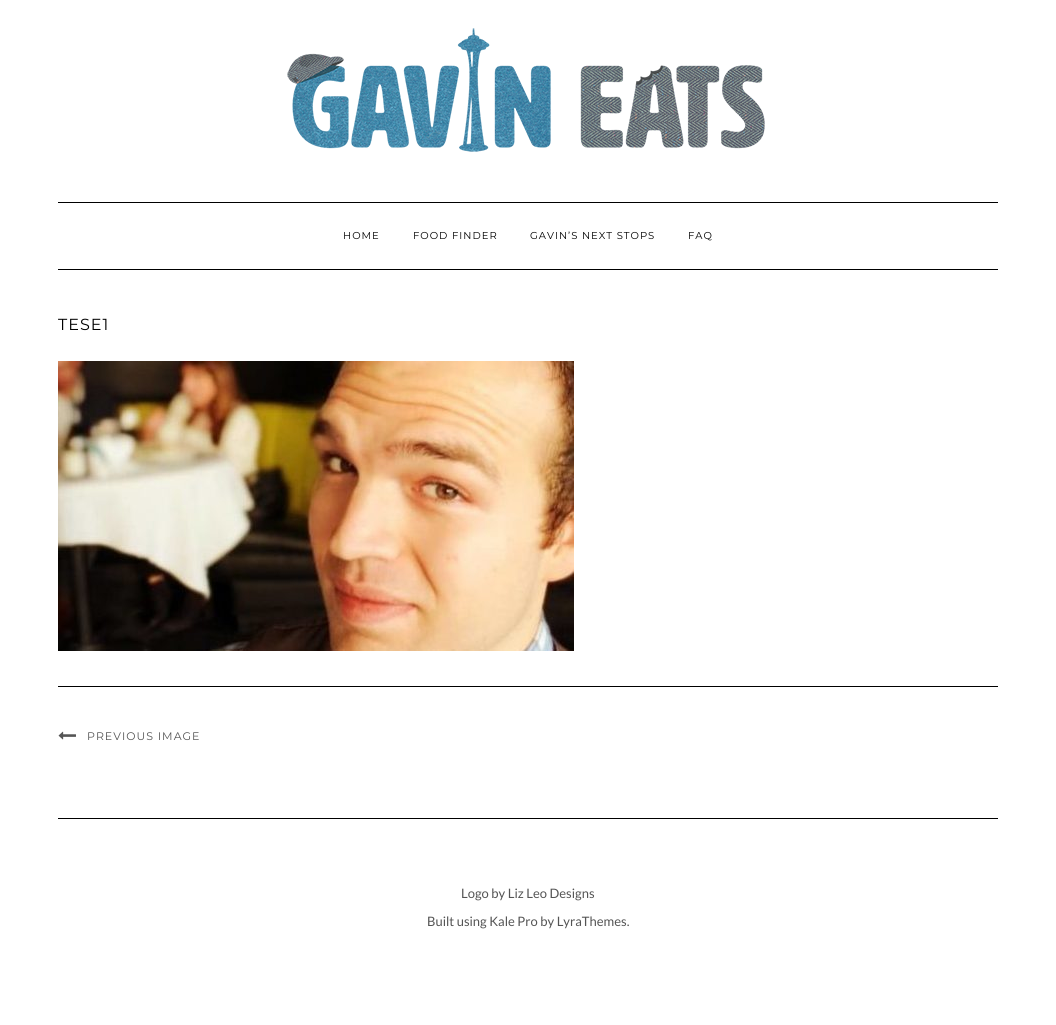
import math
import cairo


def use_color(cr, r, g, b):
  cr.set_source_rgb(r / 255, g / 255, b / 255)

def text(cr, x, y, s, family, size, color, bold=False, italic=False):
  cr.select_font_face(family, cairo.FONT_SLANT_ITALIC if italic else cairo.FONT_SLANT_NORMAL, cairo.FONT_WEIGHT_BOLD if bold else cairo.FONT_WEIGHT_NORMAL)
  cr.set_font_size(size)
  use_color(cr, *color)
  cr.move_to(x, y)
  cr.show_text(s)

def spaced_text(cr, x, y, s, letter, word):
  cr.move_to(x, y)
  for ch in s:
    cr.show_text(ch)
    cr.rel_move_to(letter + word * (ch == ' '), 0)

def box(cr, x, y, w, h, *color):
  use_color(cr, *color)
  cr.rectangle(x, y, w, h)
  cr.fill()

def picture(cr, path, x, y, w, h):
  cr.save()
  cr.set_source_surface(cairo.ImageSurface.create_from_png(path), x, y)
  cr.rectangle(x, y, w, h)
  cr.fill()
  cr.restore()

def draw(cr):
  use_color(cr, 255, 255, 255)
  cr.paint()
  picture(cr, "img_01.png", 287, 28, 478, 124)
  box(cr, 58, 202, 940, 1, 0, 0, 0)
  box(cr, 58, 269, 940, 1, 0, 0, 0)
  picture(cr, "img_02.png", 58, 361, 516, 290)
  box(cr, 58, 686, 940, 1, 0, 0, 0)
  picture(cr, "img_03.png", 58, 731, 18, 9)
  box(cr, 58, 818, 940, 1, 0, 0, 0)
  cr.select_font_face("Montserrat")
  cr.set_font_size(10)
  spaced_text(cr, 343, 239, "HOME", 1, 0)
  spaced_text(cr, 413, 239, "FOOD FINDER", 1, 0)
  spaced_text(cr, 530, 239, "GAVIN’S NEXT STOPS", 1, 0)
  spaced_text(cr, 688, 239, "FAQ", 1, 0)
  cr.set_font_size(16)
  spaced_text(cr, 58, 330, "TESE1", 1, 0)
  cr.set_font_size(11)
  use_color(cr, 84, 84, 84)
  spaced_text(cr, 87, 740, "PREVIOUS IMAGE", 1, 0)
  text(cr, 461, 898, "Logo by Liz Leo Designs", "Lato", 13, (84, 84, 84))
  text(cr, 427, 926, "Built using Kale Pro by LyraThemes.", "Lato", 13, (84, 84, 84))


surface = cairo.ImageSurface(cairo.FORMAT_RGB24, 1056, 1025)
cr = cairo.Context(surface)
options = cairo.FontOptions()
options.set_hint_metrics(cairo.HINT_METRICS_OFF)
options.set_hint_style(cairo.HINT_STYLE_NONE)
cr.set_font_options(options)
cr.set_miter_limit(4)
draw(cr)
surface.write_to_png("out.png")
